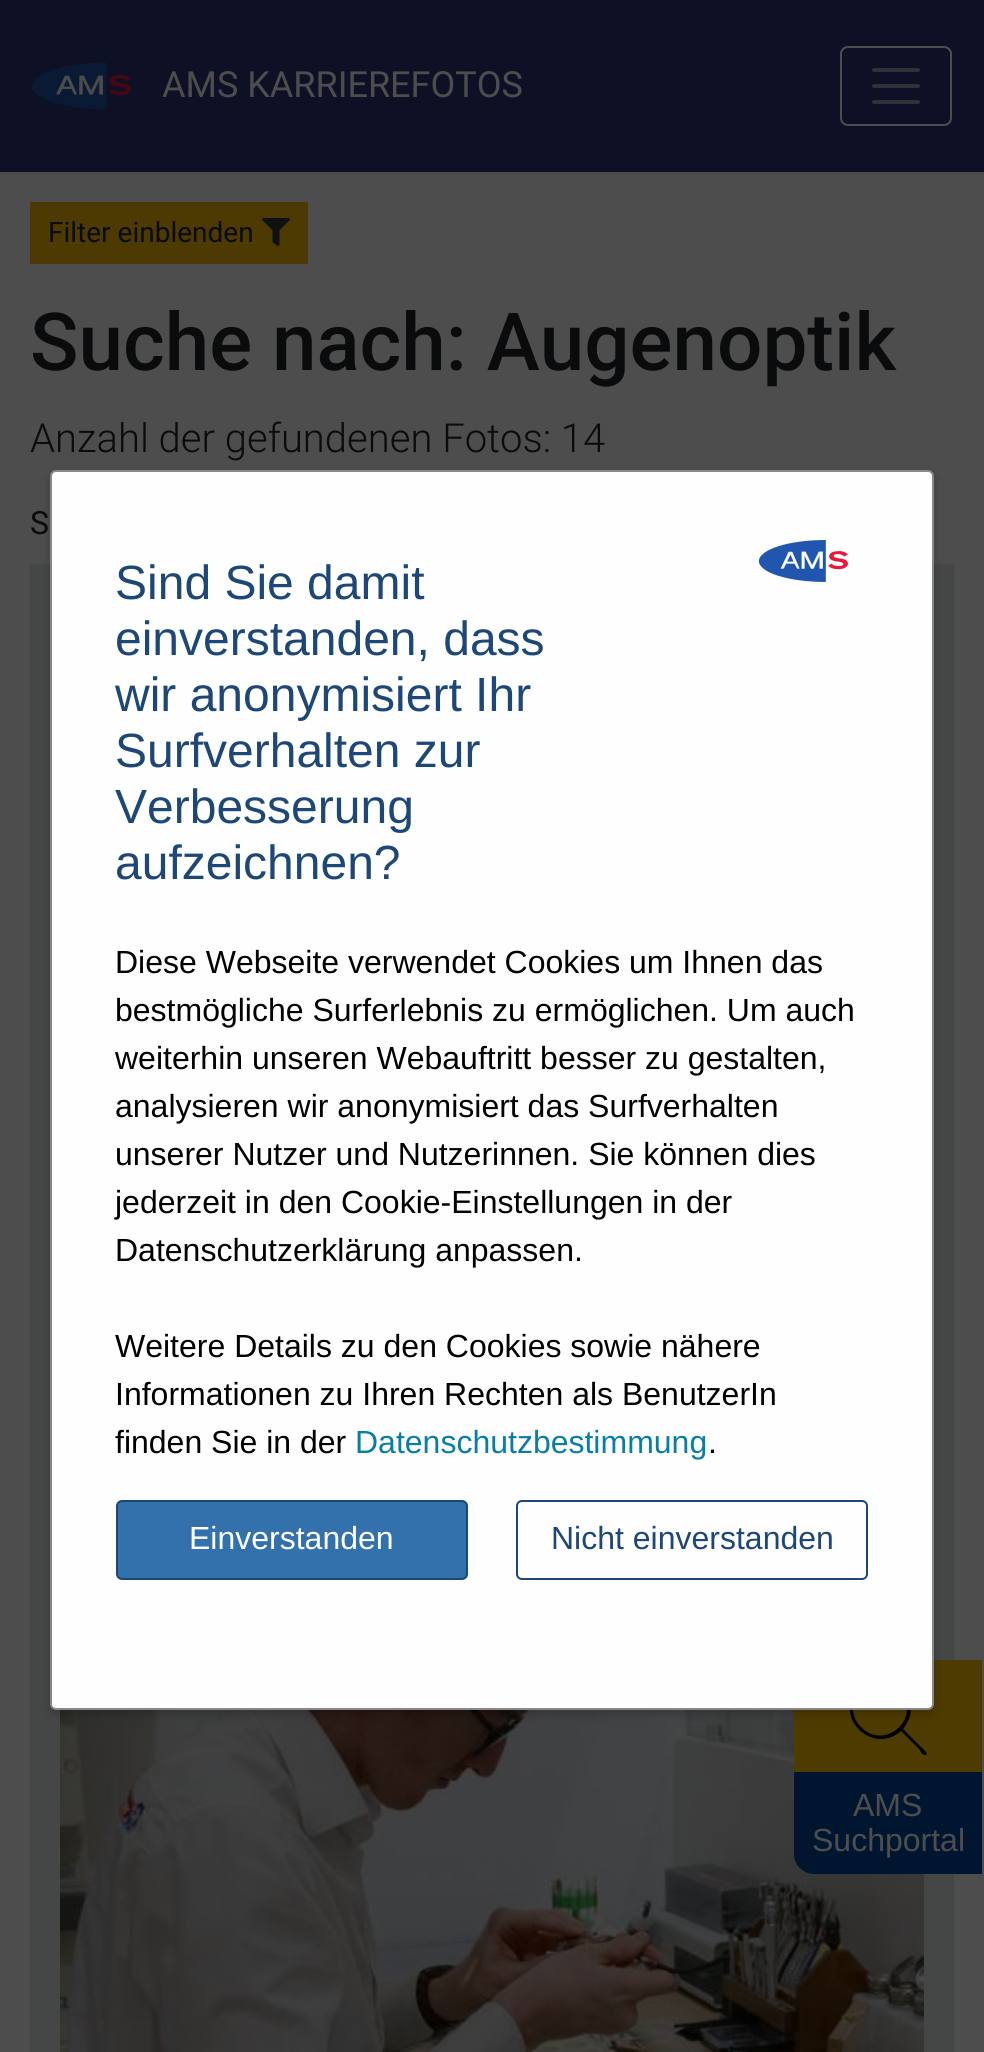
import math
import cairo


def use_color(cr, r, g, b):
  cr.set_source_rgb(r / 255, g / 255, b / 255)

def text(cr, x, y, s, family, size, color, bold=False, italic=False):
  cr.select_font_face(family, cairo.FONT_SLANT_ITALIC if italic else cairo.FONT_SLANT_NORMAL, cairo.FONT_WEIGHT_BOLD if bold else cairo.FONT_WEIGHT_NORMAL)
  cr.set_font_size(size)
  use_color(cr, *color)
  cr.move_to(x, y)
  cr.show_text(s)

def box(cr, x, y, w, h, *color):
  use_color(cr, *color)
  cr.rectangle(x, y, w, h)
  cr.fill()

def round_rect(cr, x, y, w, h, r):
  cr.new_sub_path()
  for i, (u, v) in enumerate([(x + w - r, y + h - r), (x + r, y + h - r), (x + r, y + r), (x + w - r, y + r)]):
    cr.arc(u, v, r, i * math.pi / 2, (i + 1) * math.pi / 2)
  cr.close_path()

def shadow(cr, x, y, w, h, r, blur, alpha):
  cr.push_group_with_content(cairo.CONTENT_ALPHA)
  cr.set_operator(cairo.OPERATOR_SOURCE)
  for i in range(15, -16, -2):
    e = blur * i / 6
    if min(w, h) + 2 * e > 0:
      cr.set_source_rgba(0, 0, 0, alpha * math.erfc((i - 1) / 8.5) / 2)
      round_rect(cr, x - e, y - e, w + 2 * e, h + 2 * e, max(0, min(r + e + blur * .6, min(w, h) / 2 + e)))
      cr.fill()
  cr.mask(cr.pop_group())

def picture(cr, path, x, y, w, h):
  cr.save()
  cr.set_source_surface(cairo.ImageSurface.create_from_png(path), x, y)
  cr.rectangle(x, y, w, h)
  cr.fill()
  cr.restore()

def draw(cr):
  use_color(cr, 77, 77, 77)
  cr.paint()
  box(cr, 0, 0, 984, 172, 14, 17, 37)
  picture(cr, "img_01.png", 32, 62, 99, 48)
  round_rect(cr, 841, 47, 110, 78, 7)
  use_color(cr, 77, 77, 77)
  cr.stroke()
  cr.new_path()
  cr.move_to(874, 70)
  cr.line_to(918, 70)
  cr.move_to(874, 86)
  cr.line_to(918, 86)
  cr.move_to(874, 102)
  cr.line_to(918, 102)
  use_color(cr, 45, 47, 57)
  cr.set_line_width(4)
  cr.set_line_cap(cairo.LINE_CAP_ROUND)
  cr.stroke()
  box(cr, 30, 202, 278, 62, 77, 58, 2)
  picture(cr, "img_02.png", 262, 218, 28, 28)
  box(cr, 30, 564, 924, 1488, 69, 71, 71)
  picture(cr, "img_03.png", 60, 1710, 864, 342)
  box(cr, 794, 1660, 188, 112, 77, 59, 0)
  use_color(cr, 0, 0, 0)
  cr.new_path()
  cr.move_to(926, 1752)
  cr.line_to(903, 1729)
  cr.curve_to(908, 1723, 911, 1715, 911, 1708)
  cr.curve_to(910, 1686, 888, 1672, 869, 1680)
  cr.curve_to(865, 1682, 861, 1684, 859, 1687)
  cr.curve_to(831, 1717, 873, 1756, 901, 1731)
  cr.line_to(920, 1750)
  cr.curve_to(920, 1751, 923, 1756, 926, 1755)
  cr.curve_to(927, 1754, 927, 1753, 926, 1752)
  cr.close_path()
  cr.move_to(861, 1727)
  cr.curve_to(856, 1722, 853, 1716, 853, 1708)
  cr.curve_to(853, 1685, 884, 1672, 899, 1689)
  cr.curve_to(924, 1717, 885, 1752, 861, 1727)
  cr.close_path()
  cr.fill()
  use_color(cr, 0, 0, 0)
  shadow(cr, 50, 474, 884, 1240, 6, 5, 0.2)
  use_color(cr, 254, 254, 254)
  round_rect(cr, 51, 471, 882, 1238, 5)
  cr.fill_preserve()
  use_color(cr, 136, 136, 136)
  cr.set_line_width(2)
  cr.set_line_cap(cairo.LINE_CAP_BUTT)
  cr.stroke()
  picture(cr, "img_04.png", 758, 540, 90, 42)
  use_color(cr, 51, 113, 173)
  round_rect(cr, 117, 1501, 350, 78, 5)
  cr.fill_preserve()
  use_color(cr, 29, 71, 119)
  cr.stroke()
  round_rect(cr, 517, 1501, 350, 78, 5)
  cr.stroke()
  use_color(cr, 0, 22, 48)
  cr.new_path()
  cr.move_to(794, 1772)
  cr.line_to(982, 1772)
  cr.line_to(982, 1874)
  cr.line_to(814, 1874)
  cr.curve_to(803, 1874, 794, 1865, 794, 1854)
  cr.close_path()
  cr.fill()
  text(cr, 162, 97, "AMS KARRIEREFOTOS", "Roboto", 36, (77, 77, 77))
  text(cr, 48, 242, "Filter einblenden", "Roboto", 28, (10, 11, 12))
  text(cr, 30, 370, "Suche nach: Augenoptik", "Roboto Medium", 80, (10, 11, 12))
  text(cr, 30, 452, "Anzahl der gefundenen Fotos: 14", "Roboto Light", 40, (10, 11, 12))
  text(cr, 30, 534, "S", "Roboto", 32, (10, 11, 12))
  text(cr, 115, 599, "Sind Sie damit", "Liberation Sans", 48, (29, 71, 119))
  text(cr, 115, 655, "einverstanden, dass", "Liberation Sans", 48, (29, 71, 119))
  text(cr, 115, 711, "wir anonymisiert Ihr", "Liberation Sans", 48, (29, 71, 119))
  text(cr, 115, 767, "Surfverhalten zur", "Liberation Sans", 48, (29, 71, 119))
  text(cr, 115, 823, "Verbesserung", "Liberation Sans", 48, (29, 71, 119))
  text(cr, 115, 879, "aufzeichnen?", "Liberation Sans", 48, (29, 71, 119))
  text(cr, 115, 973, "Diese Webseite verwendet Cookies um Ihnen das", "Liberation Sans", 32, (0, 0, 0))
  text(cr, 115, 1021, "bestmögliche Surferlebnis zu ermöglichen. Um auch", "Liberation Sans", 32, (0, 0, 0))
  text(cr, 115, 1069, "weiterhin unseren Webauftritt besser zu gestalten,", "Liberation Sans", 32, (0, 0, 0))
  text(cr, 115, 1117, "analysieren wir anonymisiert das Surfverhalten", "Liberation Sans", 32, (0, 0, 0))
  text(cr, 115, 1165, "unserer Nutzer und Nutzerinnen. Sie können dies", "Liberation Sans", 32, (0, 0, 0))
  text(cr, 115, 1213, "jederzeit in den Cookie-Einstellungen in der", "Liberation Sans", 32, (0, 0, 0))
  text(cr, 115, 1261, "Datenschutzerklärung anpassen.", "Liberation Sans", 32, (0, 0, 0))
  text(cr, 115, 1357, "Weitere Details zu den Cookies sowie nähere", "Liberation Sans", 32, (0, 0, 0))
  text(cr, 115, 1405, "Informationen zu Ihren Rechten als BenutzerIn", "Liberation Sans", 32, (0, 0, 0))
  text(cr, 115, 1453, "finden Sie in der", "Liberation Sans", 32, (0, 0, 0))
  text(cr, 355, 1453, "Datenschutzbestimmung", "Liberation Sans", 32, (9, 126, 165))
  text(cr, 708, 1453, ".", "Liberation Sans", 32, (0, 0, 0))
  text(cr, 189, 1549, "Einverstanden", "Liberation Sans", 32, (255, 255, 255))
  text(cr, 551, 1549, "Nicht einverstanden", "Liberation Sans", 32, (29, 71, 119))
  text(cr, 853, 1816, "AMS", "Liberation Sans", 32, (77, 77, 77))
  text(cr, 812, 1851, "Suchportal", "Liberation Sans", 32, (77, 77, 77))


surface = cairo.ImageSurface(cairo.FORMAT_RGB24, 984, 2052)
cr = cairo.Context(surface)
options = cairo.FontOptions()
options.set_hint_metrics(cairo.HINT_METRICS_OFF)
options.set_hint_style(cairo.HINT_STYLE_NONE)
cr.set_font_options(options)
cr.set_miter_limit(4)
draw(cr)
surface.write_to_png("out.png")
